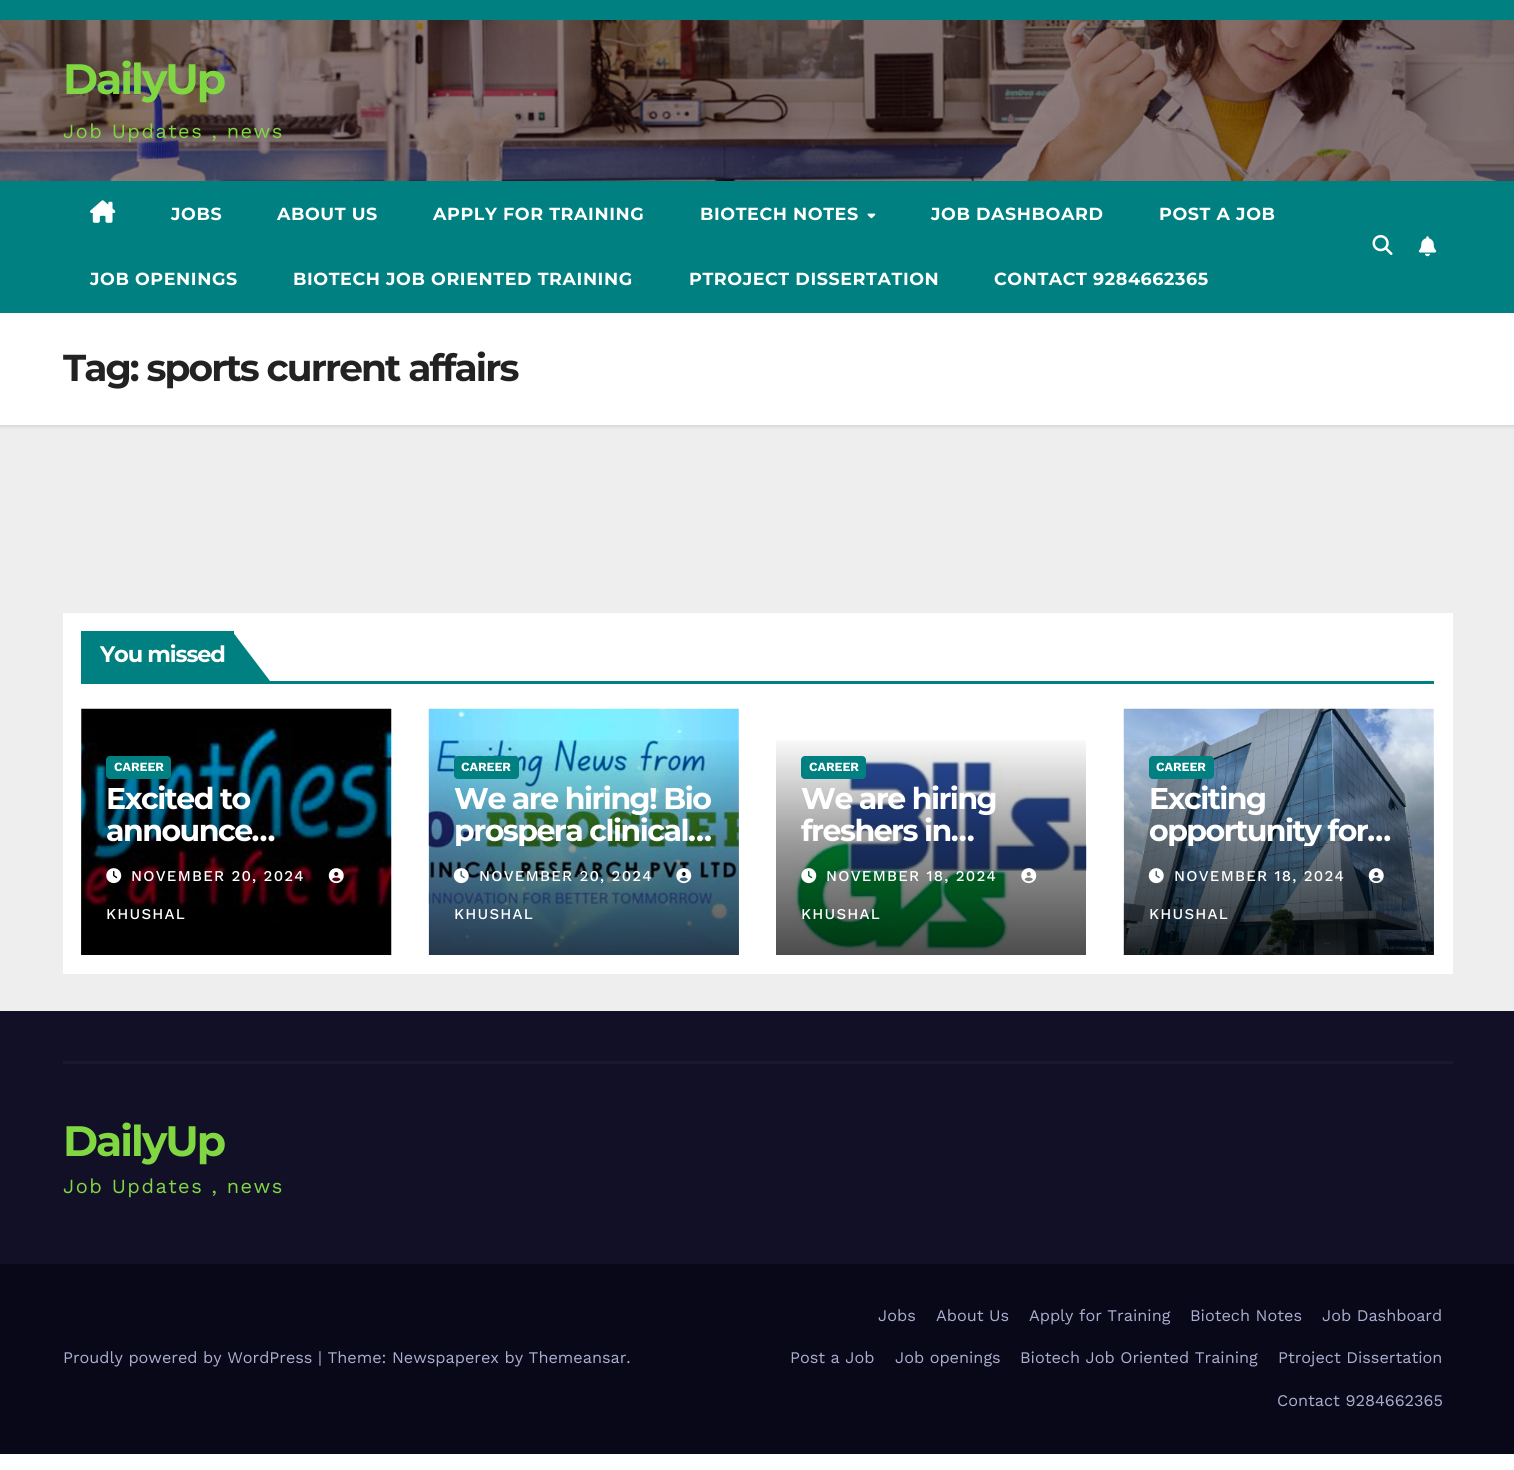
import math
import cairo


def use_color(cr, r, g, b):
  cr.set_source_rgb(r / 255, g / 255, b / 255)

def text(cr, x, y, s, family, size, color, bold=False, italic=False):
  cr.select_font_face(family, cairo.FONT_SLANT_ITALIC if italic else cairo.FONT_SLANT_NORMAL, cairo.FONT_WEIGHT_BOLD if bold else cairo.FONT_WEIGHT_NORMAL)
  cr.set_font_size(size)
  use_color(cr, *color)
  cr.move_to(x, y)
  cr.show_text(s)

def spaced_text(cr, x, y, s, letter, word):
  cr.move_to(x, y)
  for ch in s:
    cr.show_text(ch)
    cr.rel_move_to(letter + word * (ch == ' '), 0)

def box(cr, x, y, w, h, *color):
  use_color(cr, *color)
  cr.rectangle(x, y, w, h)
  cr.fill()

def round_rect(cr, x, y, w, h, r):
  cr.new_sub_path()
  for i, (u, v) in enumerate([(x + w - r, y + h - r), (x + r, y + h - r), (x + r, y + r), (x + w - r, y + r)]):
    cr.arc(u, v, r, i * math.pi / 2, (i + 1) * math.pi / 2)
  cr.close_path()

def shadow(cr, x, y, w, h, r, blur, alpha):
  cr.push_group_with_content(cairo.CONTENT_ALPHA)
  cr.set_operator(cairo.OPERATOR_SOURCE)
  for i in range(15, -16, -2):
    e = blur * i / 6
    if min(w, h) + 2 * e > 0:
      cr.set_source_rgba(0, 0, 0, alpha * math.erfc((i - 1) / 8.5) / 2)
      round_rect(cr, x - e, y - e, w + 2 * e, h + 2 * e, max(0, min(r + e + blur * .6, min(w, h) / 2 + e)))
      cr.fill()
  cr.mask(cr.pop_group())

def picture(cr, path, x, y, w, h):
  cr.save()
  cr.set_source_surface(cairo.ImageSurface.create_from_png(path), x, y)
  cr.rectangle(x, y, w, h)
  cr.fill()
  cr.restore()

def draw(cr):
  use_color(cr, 255, 255, 255)
  cr.paint()
  box(cr, 0, 425, 1514, 586, 238, 238, 238)
  box(cr, 0, 0, 1514, 20, 0, 128, 128)
  picture(cr, "img_01.png", 0, 20, 1514, 161)
  use_color(cr, 0, 0, 0)
  shadow(cr, 0, 314, 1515, 112, 0, 2, 0.15)
  box(cr, 0, 181, 1514, 132, 0, 128, 128)
  picture(cr, "img_02.png", 90, 200, 26, 23)
  picture(cr, "img_03.png", 867, 213, 9, 6)
  picture(cr, "img_04.png", 1372, 235, 21, 20)
  picture(cr, "img_05.png", 1418, 236, 19, 21)
  box(cr, 0, 313, 1514, 112, 255, 255, 255)
  box(cr, 63, 613, 1390, 361, 255, 255, 255)
  box(cr, 81, 681, 1353, 3, 0, 128, 128)
  box(cr, 81, 631, 153, 50, 0, 128, 128)
  cr.new_path()
  cr.move_to(232, 681)
  cr.line_to(232, 631)
  cr.line_to(270, 681)
  cr.close_path()
  cr.fill()
  picture(cr, "img_06.png", 81, 708, 311, 247)
  gradient = cairo.LinearGradient(236, 734, 236, 955)
  gradient.add_color_stop_rgba(0, 0, 0, 0, 0)
  gradient.add_color_stop_rgba(0.5, 0, 0, 0, 0.4)
  gradient.add_color_stop_rgba(1, 0, 0, 0, 0.7)
  cr.set_source(gradient)
  cr.rectangle(81, 740, 310, 215)
  cr.fill()
  use_color(cr, 0, 128, 128)
  round_rect(cr, 106, 756, 65, 23, 4)
  cr.fill()
  picture(cr, "img_07.png", 106, 868, 16, 16)
  picture(cr, "img_08.png", 328, 868, 16, 16)
  picture(cr, "img_09.png", 428, 708, 311, 247)
  gradient = cairo.LinearGradient(584, 734, 584, 955)
  gradient.add_color_stop_rgba(0, 0, 0, 0, 0)
  gradient.add_color_stop_rgba(0.5, 0, 0, 0, 0.4)
  gradient.add_color_stop_rgba(1, 0, 0, 0, 0.7)
  cr.set_source(gradient)
  cr.rectangle(429, 740, 310, 215)
  cr.fill()
  use_color(cr, 0, 128, 128)
  round_rect(cr, 454, 756, 65, 23, 4)
  cr.fill()
  picture(cr, "img_10.png", 453, 868, 16, 16)
  picture(cr, "img_11.png", 676, 868, 16, 16)
  picture(cr, "img_12.png", 776, 709, 311, 246)
  gradient = cairo.LinearGradient(931, 734, 931, 955)
  gradient.add_color_stop_rgba(0, 0, 0, 0, 0)
  gradient.add_color_stop_rgba(0.5, 0, 0, 0, 0.4)
  gradient.add_color_stop_rgba(1, 0, 0, 0, 0.7)
  cr.set_source(gradient)
  cr.rectangle(776, 740, 310, 215)
  cr.fill()
  use_color(cr, 0, 128, 128)
  round_rect(cr, 801, 756, 65, 23, 4)
  cr.fill()
  picture(cr, "img_13.png", 801, 868, 16, 16)
  picture(cr, "img_14.png", 1021, 868, 16, 16)
  picture(cr, "img_15.png", 1123, 708, 311, 247)
  gradient = cairo.LinearGradient(1279, 734, 1279, 955)
  gradient.add_color_stop_rgba(0, 0, 0, 0, 0)
  gradient.add_color_stop_rgba(0.5, 0, 0, 0, 0.4)
  gradient.add_color_stop_rgba(1, 0, 0, 0, 0.7)
  cr.set_source(gradient)
  cr.rectangle(1124, 740, 310, 215)
  cr.fill()
  use_color(cr, 0, 128, 128)
  round_rect(cr, 1149, 756, 65, 23, 4)
  cr.fill()
  picture(cr, "img_16.png", 1148, 868, 16, 16)
  picture(cr, "img_17.png", 1368, 868, 16, 16)
  box(cr, 0, 1011, 1514, 253, 18, 16, 38)
  box(cr, 63, 1061, 1390, 3, 26, 24, 46)
  box(cr, 0, 1264, 1514, 190, 9, 8, 24)
  cr.select_font_face("Montserrat", cairo.FONT_SLANT_NORMAL, cairo.FONT_WEIGHT_BOLD)
  cr.set_font_size(42.5)
  use_color(cr, 129, 215, 66)
  spaced_text(cr, 63, 94, "DailyUp", -2, 0)
  cr.select_font_face("Work Sans")
  cr.set_font_size(20)
  spaced_text(cr, 63, 138, "Job Updates , news", 1.5, 0)
  cr.select_font_face("Montserrat", cairo.FONT_SLANT_NORMAL, cairo.FONT_WEIGHT_BOLD)
  cr.set_font_size(17.5)
  use_color(cr, 255, 255, 255)
  spaced_text(cr, 171, 220, "JOBS", 0.6, 0)
  spaced_text(cr, 277, 220, "ABOUT US", 0.6, 0)
  spaced_text(cr, 433, 220, "APPLY FOR TRAINING", 0.6, 0)
  spaced_text(cr, 700, 220, "BIOTECH NOTES", 0.6, 0)
  spaced_text(cr, 931, 220, "JOB DASHBOARD", 0.6, 0)
  spaced_text(cr, 1159, 220, "POST A JOB", 0.6, 0)
  spaced_text(cr, 90, 285, "JOB OPENINGS", 0.6, 0)
  spaced_text(cr, 293, 285, "BIOTECH JOB ORIENTED TRAINING", 0.6, 0)
  spaced_text(cr, 689, 285, "PTROJECT DISSERTATION", 0.6, 0)
  spaced_text(cr, 994, 285, "CONTACT 9284662365", 0.6, 0)
  cr.set_font_size(37.5)
  use_color(cr, 34, 34, 34)
  spaced_text(cr, 63, 381, "Tag: sports current affairs", -1.9, 0)
  cr.set_font_size(22.5)
  use_color(cr, 255, 255, 255)
  spaced_text(cr, 100, 662, "You missed", -1.1, 0)
  text(cr, 114, 771, "CAREER", "Work Sans", 12.5, (255, 255, 255), bold=True)
  cr.select_font_face("Montserrat", cairo.FONT_SLANT_NORMAL, cairo.FONT_WEIGHT_BOLD)
  cr.set_font_size(30)
  spaced_text(cr, 106, 809, "Excited to", -1.5, 0)
  spaced_text(cr, 106, 841, "announce…", -1.5, 0)
  cr.select_font_face("Work Sans Medium")
  cr.set_font_size(15)
  spaced_text(cr, 131, 881, "NOVEMBER 20, 2024", 1.25, 0)
  spaced_text(cr, 106, 919, "KHUSHAL", 1.25, 0)
  text(cr, 461, 771, "CAREER", "Work Sans", 12.5, (255, 255, 255), bold=True)
  cr.select_font_face("Montserrat", cairo.FONT_SLANT_NORMAL, cairo.FONT_WEIGHT_BOLD)
  cr.set_font_size(30)
  spaced_text(cr, 454, 809, "We are hiring! Bio", -1.5, 0)
  cr.save()
  cr.rectangle(454, 784, 260, 62)
  cr.clip()
  spaced_text(cr, 454, 841, "prospera clinical…", -1.5, 0)
  cr.restore()
  cr.select_font_face("Work Sans Medium")
  cr.set_font_size(15)
  spaced_text(cr, 479, 881, "NOVEMBER 20, 2024", 1.25, 0)
  spaced_text(cr, 454, 919, "KHUSHAL", 1.25, 0)
  text(cr, 809, 771, "CAREER", "Work Sans", 12.5, (255, 255, 255), bold=True)
  cr.select_font_face("Montserrat", cairo.FONT_SLANT_NORMAL, cairo.FONT_WEIGHT_BOLD)
  cr.set_font_size(30)
  spaced_text(cr, 801, 809, "We are hiring", -1.5, 0)
  spaced_text(cr, 801, 841, "freshers in…", -1.5, 0)
  cr.select_font_face("Work Sans Medium")
  cr.set_font_size(15)
  spaced_text(cr, 826, 881, "NOVEMBER 18, 2024", 1.25, 0)
  spaced_text(cr, 801, 919, "KHUSHAL", 1.25, 0)
  text(cr, 1156, 771, "CAREER", "Work Sans", 12.5, (255, 255, 255), bold=True)
  cr.select_font_face("Montserrat", cairo.FONT_SLANT_NORMAL, cairo.FONT_WEIGHT_BOLD)
  cr.set_font_size(30)
  spaced_text(cr, 1149, 809, "Exciting", -1.5, 0)
  cr.save()
  cr.rectangle(1149, 784, 260, 62)
  cr.clip()
  spaced_text(cr, 1149, 841, "opportunity for…", -1.5, 0)
  cr.restore()
  cr.select_font_face("Work Sans Medium")
  cr.set_font_size(15)
  spaced_text(cr, 1174, 881, "NOVEMBER 18, 2024", 1.25, 0)
  spaced_text(cr, 1149, 919, "KHUSHAL", 1.25, 0)
  cr.select_font_face("Montserrat", cairo.FONT_SLANT_NORMAL, cairo.FONT_WEIGHT_BOLD)
  cr.set_font_size(42.5)
  use_color(cr, 129, 215, 66)
  spaced_text(cr, 63, 1156, "DailyUp", -2, 0)
  cr.select_font_face("Work Sans")
  cr.set_font_size(20)
  spaced_text(cr, 63, 1193, "Job Updates , news", 1.5, 0)
  text(cr, 63, 1363, "Proudly powered by WordPress | Theme: Newspaperex by Themeansar.", "Work Sans", 16.25, (170, 174, 209))
  text(cr, 878, 1321, "Jobs", "Work Sans", 16.25, (170, 174, 209))
  text(cr, 936, 1321, "About Us", "Work Sans", 16.25, (170, 174, 209))
  text(cr, 1029, 1321, "Apply for Training", "Work Sans", 16.25, (170, 174, 209))
  text(cr, 1190, 1321, "Biotech Notes", "Work Sans", 16.25, (170, 174, 209))
  text(cr, 1322, 1321, "Job Dashboard", "Work Sans", 16.25, (170, 174, 209))
  text(cr, 790, 1363, "Post a Job", "Work Sans", 16.25, (170, 174, 209))
  text(cr, 895, 1363, "Job openings", "Work Sans", 16.25, (170, 174, 209))
  text(cr, 1020, 1363, "Biotech Job Oriented Training", "Work Sans", 16.25, (170, 174, 209))
  text(cr, 1278, 1363, "Ptroject Dissertation", "Work Sans", 16.25, (170, 174, 209))
  text(cr, 1277, 1406, "Contact 9284662365", "Work Sans", 16.25, (170, 174, 209))


surface = cairo.ImageSurface(cairo.FORMAT_RGB24, 1514, 1470)
cr = cairo.Context(surface)
options = cairo.FontOptions()
options.set_hint_metrics(cairo.HINT_METRICS_OFF)
options.set_hint_style(cairo.HINT_STYLE_NONE)
cr.set_font_options(options)
cr.set_miter_limit(4)
draw(cr)
surface.write_to_png("out.png")
